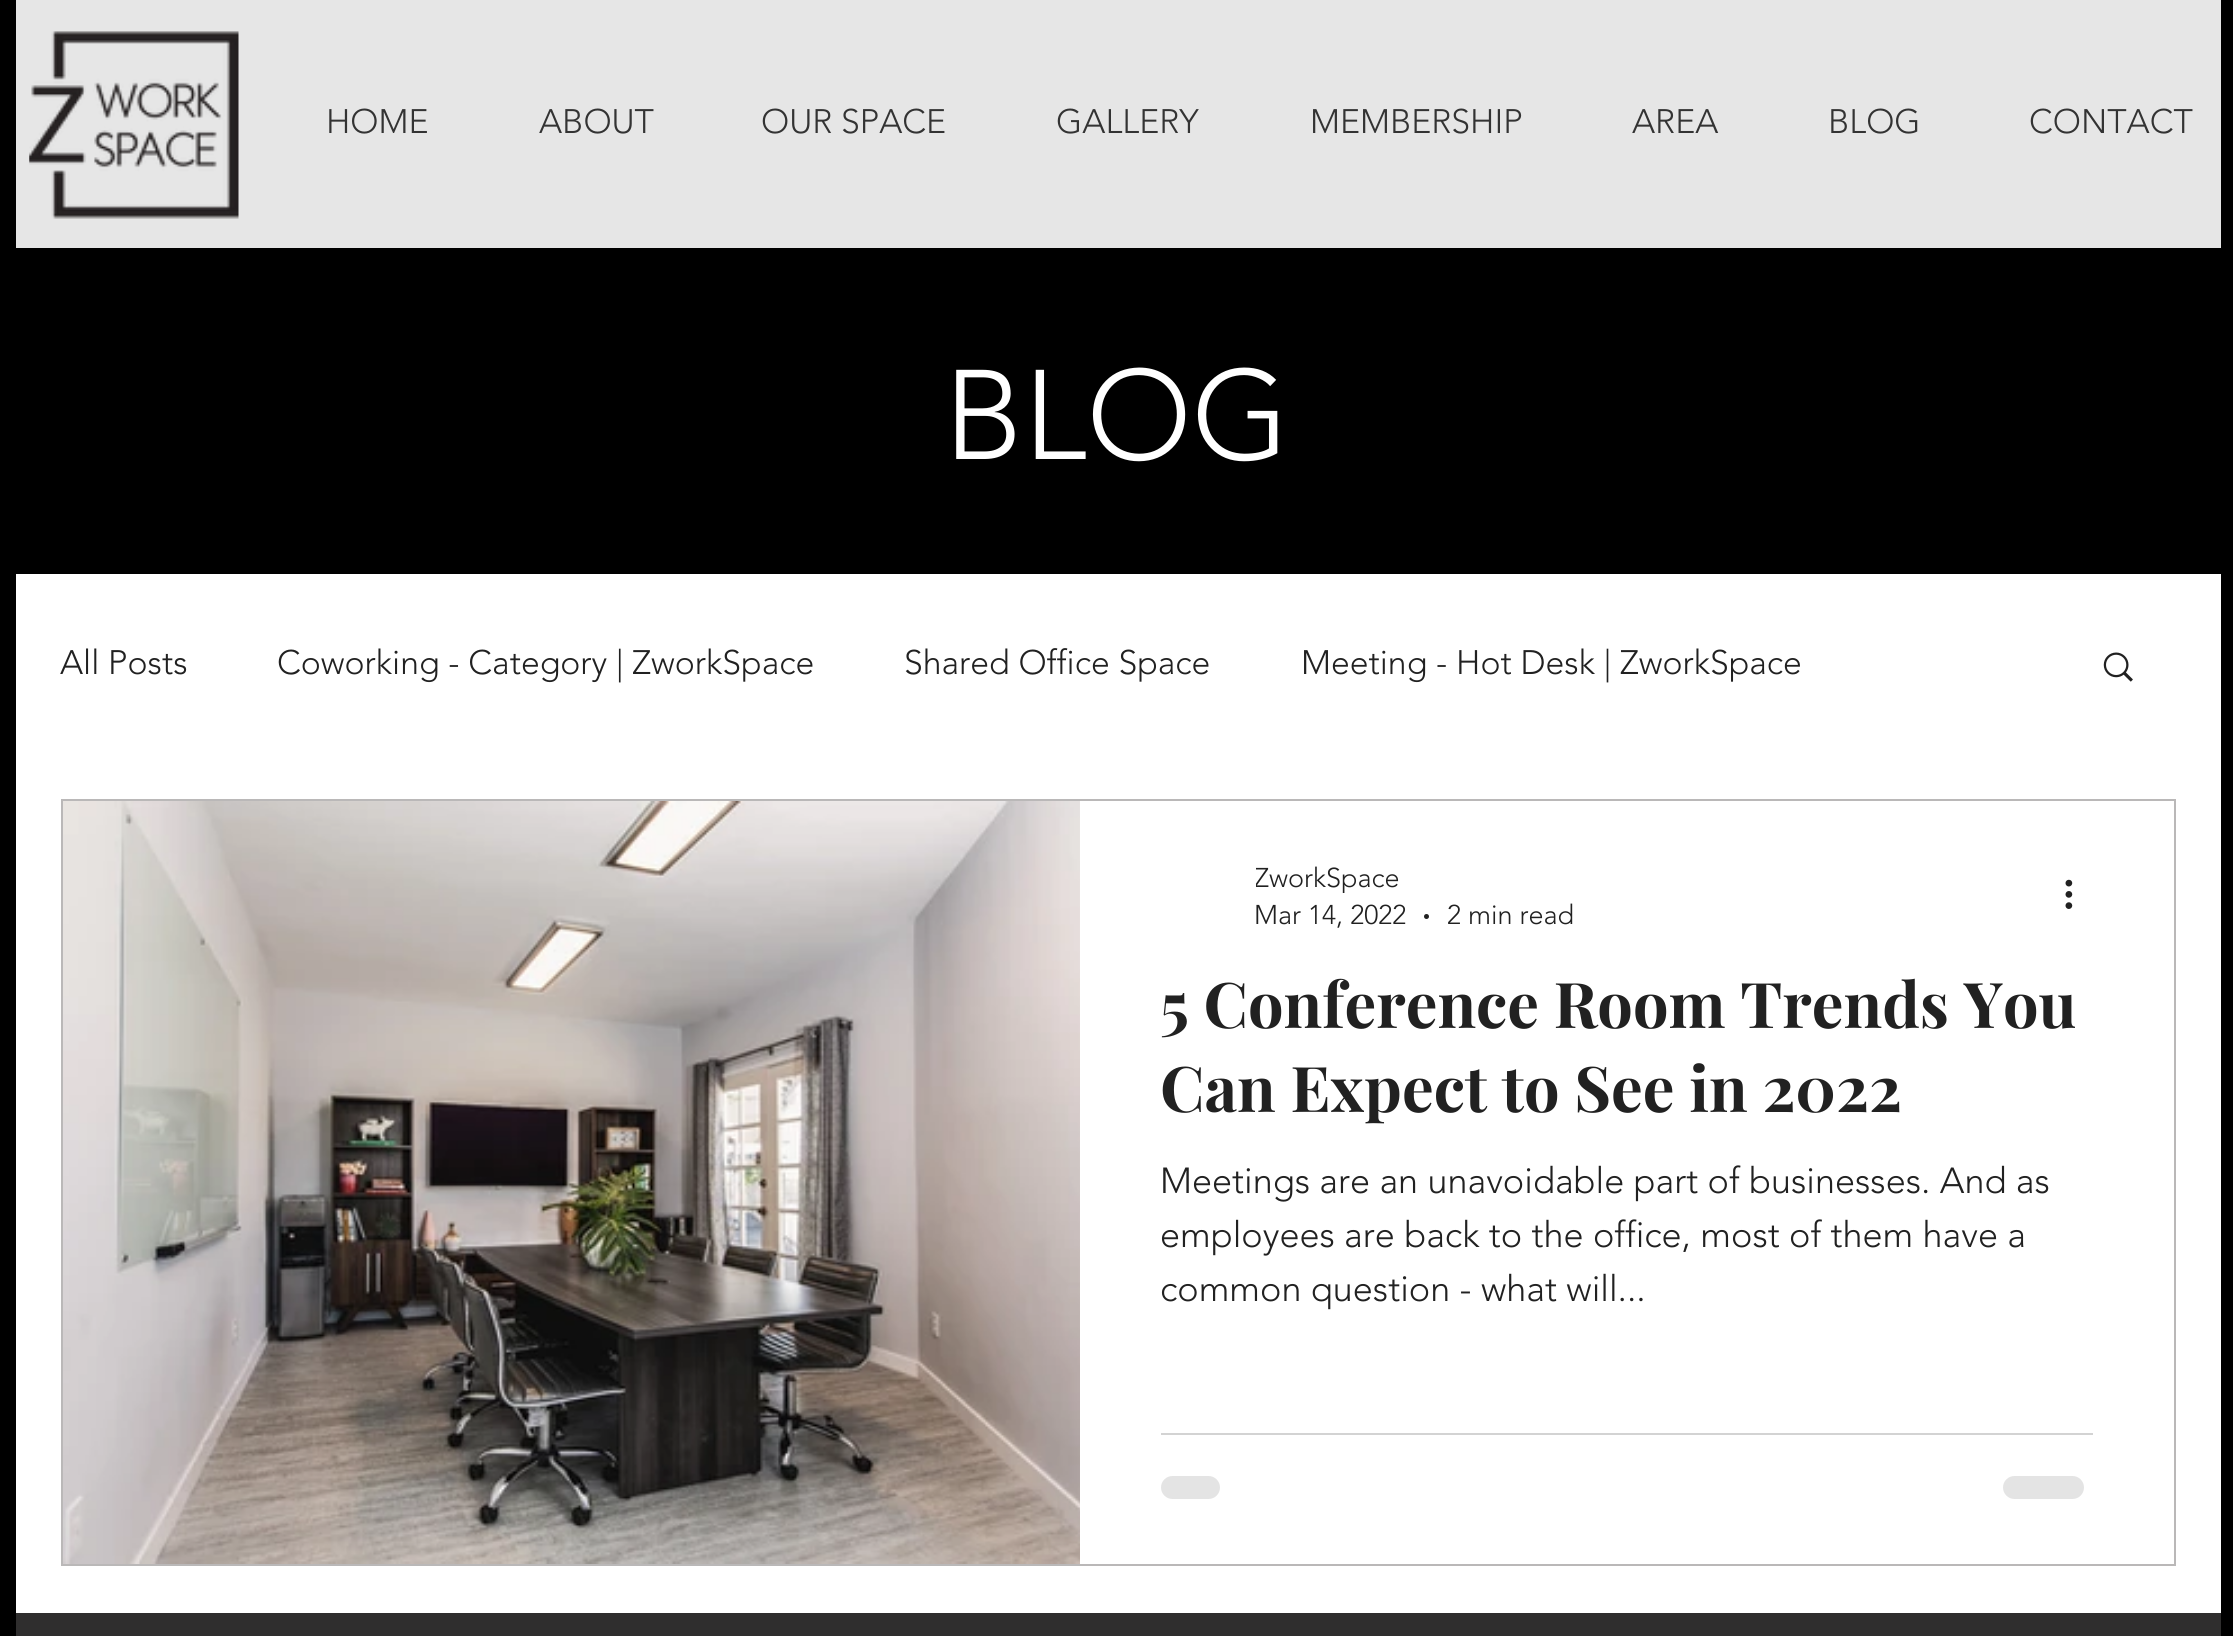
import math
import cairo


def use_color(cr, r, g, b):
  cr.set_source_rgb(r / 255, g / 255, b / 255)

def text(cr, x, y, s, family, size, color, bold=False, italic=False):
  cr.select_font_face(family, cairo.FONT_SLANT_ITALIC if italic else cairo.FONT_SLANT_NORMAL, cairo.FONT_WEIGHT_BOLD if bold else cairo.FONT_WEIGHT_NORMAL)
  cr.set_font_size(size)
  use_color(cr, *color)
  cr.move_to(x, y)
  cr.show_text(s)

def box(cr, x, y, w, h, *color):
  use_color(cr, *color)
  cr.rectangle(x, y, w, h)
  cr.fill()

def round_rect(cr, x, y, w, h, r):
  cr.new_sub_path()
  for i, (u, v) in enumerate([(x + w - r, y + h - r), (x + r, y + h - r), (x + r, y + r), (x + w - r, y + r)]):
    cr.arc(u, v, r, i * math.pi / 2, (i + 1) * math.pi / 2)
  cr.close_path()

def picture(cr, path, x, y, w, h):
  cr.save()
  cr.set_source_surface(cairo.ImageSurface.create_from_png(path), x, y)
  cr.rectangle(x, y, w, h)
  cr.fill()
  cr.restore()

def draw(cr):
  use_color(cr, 0, 0, 0)
  cr.paint()
  box(cr, 16, 0, 2205, 248, 230, 230, 230)
  picture(cr, "img_01.png", 29, 31, 210, 188)
  box(cr, 16, 574, 2205, 1039, 255, 255, 255)
  picture(cr, "img_02.png", 2103, 652, 30, 30)
  cr.rectangle(62, 800, 2113, 765)
  use_color(cr, 186, 184, 184)
  cr.stroke()
  picture(cr, "img_03.png", 63, 801, 1017, 763)
  use_color(cr, 33, 33, 33)
  cr.arc(1426.5, 916.5, 2.5, 0, 2 * math.pi)
  cr.fill()
  picture(cr, "img_04.png", 2065, 879, 8, 30)
  box(cr, 1161, 1433, 932, 2, 211, 211, 211)
  use_color(cr, 228, 228, 228)
  round_rect(cr, 1161, 1476, 59, 23, 11.5)
  cr.fill()
  round_rect(cr, 2003, 1476, 81, 23, 11.5)
  cr.fill()
  box(cr, 16, 1613, 2205, 23, 47, 46, 46)
  text(cr, 326, 133, "HOME", "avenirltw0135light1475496 Light", 33.75, (51, 51, 51))
  text(cr, 539, 133, "ABOUT", "avenirltw0135light1475496 Light", 33.75, (51, 51, 51))
  text(cr, 761, 133, "OUR SPACE", "avenirltw0135light1475496 Light", 33.75, (51, 51, 51))
  text(cr, 1056, 133, "GALLERY", "avenirltw0135light1475496 Light", 33.75, (51, 51, 51))
  text(cr, 1310, 133, "MEMBERSHIP", "avenirltw0135light1475496 Light", 33.75, (51, 51, 51))
  text(cr, 1632, 133, "AREA", "avenirltw0135light1475496 Light", 33.75, (51, 51, 51))
  text(cr, 1828, 133, "BLOG", "avenirltw0135light1475496 Light", 33.75, (51, 51, 51))
  text(cr, 2029, 133, "CONTACT", "avenirltw0135light1475496 Light", 33.75, (51, 51, 51))
  text(cr, 944, 459, "BLOG", "avenirltw0135light1475496 Light", 126, (255, 255, 255))
  text(cr, 60, 674, "All Posts", "avenirltw0135light1475496 Light", 33.75, (33, 33, 33))
  text(cr, 277, 674, "Coworking - Category | ZworkSpace", "avenirltw0135light1475496 Light", 33.75, (33, 33, 33))
  text(cr, 904, 674, "Shared Office Space", "avenirltw0135light1475496 Light", 33.75, (33, 33, 33))
  text(cr, 1301, 674, "Meeting - Hot Desk | ZworkSpace", "avenirltw0135light1475496 Light", 33.75, (33, 33, 33))
  cr.save()
  cr.rectangle(1256, 862, 144, 31)
  cr.clip()
  text(cr, 1254, 887, "ZworkSpace", "avenirltw0135light1475496 Light", 27, (33, 33, 33))
  cr.restore()
  text(cr, 1254, 924, "Mar 14, 2022", "avenirltw0135light1475496 Light", 27, (33, 33, 33))
  text(cr, 1447, 924, "2 min read", "avenirltw0135light1475496 Light", 27, (33, 33, 33))
  text(cr, 1160, 1028, "5 Conference Room Trends You", "Playfair Display", 63, (33, 33, 33), bold=True)
  text(cr, 1160, 1112, "Can Expect to See in 2022", "Playfair Display", 63, (33, 33, 33), bold=True)
  text(cr, 1160, 1193, "Meetings are an unavoidable part of businesses. And as", "avenirltw0135light1475496 Light", 36, (33, 33, 33))
  text(cr, 1160, 1247, "employees are back to the office, most of them have a", "avenirltw0135light1475496 Light", 36, (33, 33, 33))
  text(cr, 1160, 1301, "common question - what will...", "avenirltw0135light1475496 Light", 36, (33, 33, 33))


surface = cairo.ImageSurface(cairo.FORMAT_RGB24, 2233, 1636)
cr = cairo.Context(surface)
options = cairo.FontOptions()
options.set_hint_metrics(cairo.HINT_METRICS_OFF)
options.set_hint_style(cairo.HINT_STYLE_NONE)
cr.set_font_options(options)
cr.set_miter_limit(4)
draw(cr)
surface.write_to_png("out.png")
